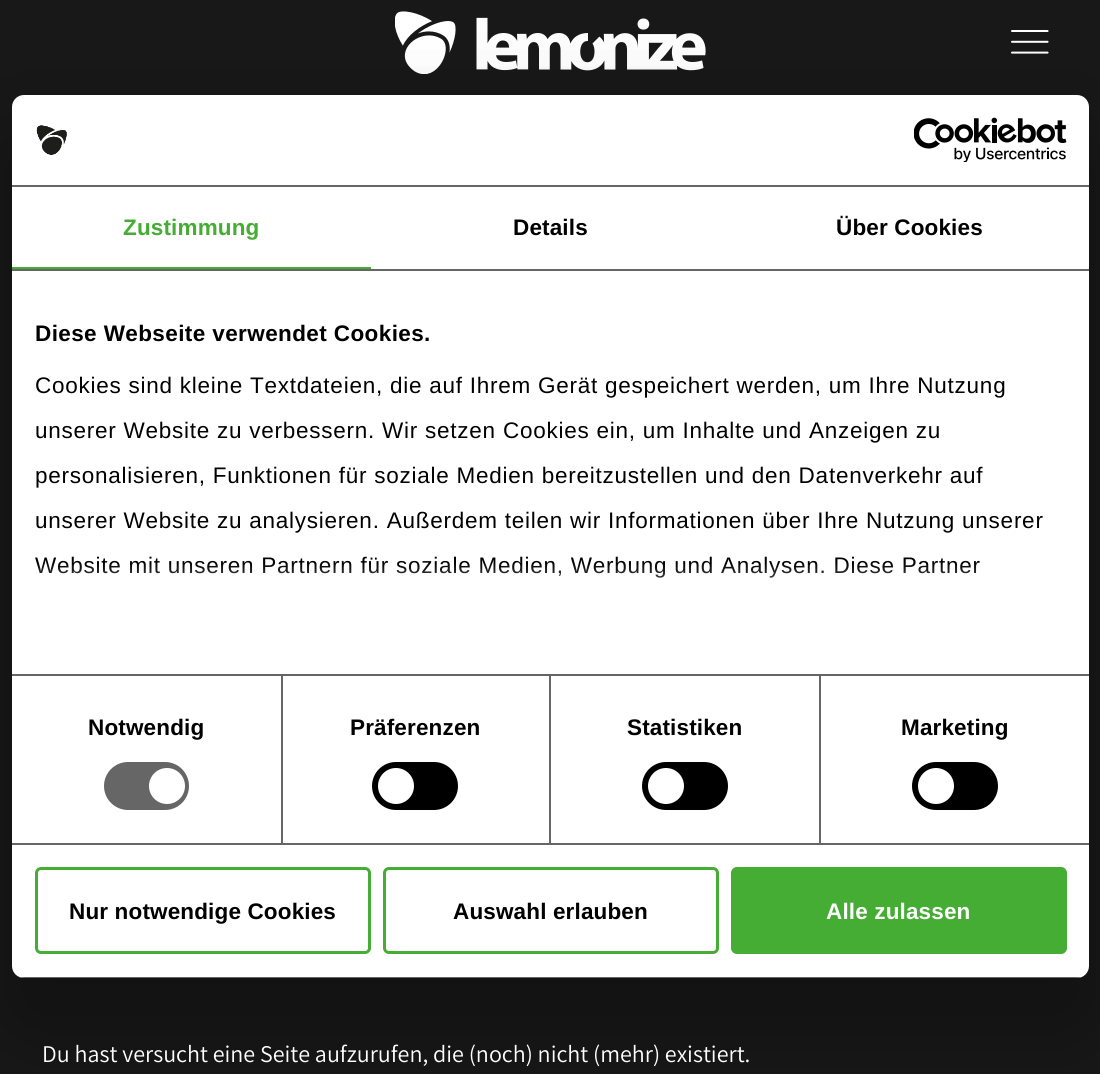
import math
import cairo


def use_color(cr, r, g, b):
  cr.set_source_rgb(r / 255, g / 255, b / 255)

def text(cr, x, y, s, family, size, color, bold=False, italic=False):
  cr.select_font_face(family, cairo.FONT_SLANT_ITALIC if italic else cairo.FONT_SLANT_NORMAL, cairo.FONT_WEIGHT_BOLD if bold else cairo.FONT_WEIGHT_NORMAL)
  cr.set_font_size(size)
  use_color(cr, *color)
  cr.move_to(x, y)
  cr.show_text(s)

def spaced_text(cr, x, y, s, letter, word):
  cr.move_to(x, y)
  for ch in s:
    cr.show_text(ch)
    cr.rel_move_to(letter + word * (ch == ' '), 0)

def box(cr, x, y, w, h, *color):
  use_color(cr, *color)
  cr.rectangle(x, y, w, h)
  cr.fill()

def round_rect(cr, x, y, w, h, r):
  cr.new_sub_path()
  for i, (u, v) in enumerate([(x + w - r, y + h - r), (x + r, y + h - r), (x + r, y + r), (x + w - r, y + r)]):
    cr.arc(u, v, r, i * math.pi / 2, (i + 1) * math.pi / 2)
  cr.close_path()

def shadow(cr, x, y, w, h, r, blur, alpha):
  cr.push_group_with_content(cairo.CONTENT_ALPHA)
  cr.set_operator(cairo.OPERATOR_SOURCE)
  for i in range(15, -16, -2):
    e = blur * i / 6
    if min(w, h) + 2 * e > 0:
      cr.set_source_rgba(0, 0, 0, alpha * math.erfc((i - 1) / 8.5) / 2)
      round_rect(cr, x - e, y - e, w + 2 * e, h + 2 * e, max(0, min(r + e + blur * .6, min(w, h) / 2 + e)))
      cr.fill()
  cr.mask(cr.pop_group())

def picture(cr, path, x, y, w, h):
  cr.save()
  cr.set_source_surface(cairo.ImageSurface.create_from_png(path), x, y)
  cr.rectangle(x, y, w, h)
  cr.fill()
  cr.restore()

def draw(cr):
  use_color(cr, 24, 24, 25)
  cr.paint()
  picture(cr, "img_03.png", 395, 11, 311, 63)
  picture(cr, "img_04.png", 1011, 30, 38, 24)
  use_color(cr, 0, 0, 0)
  shadow(cr, 12, 143, 1077, 883, 12, 51, 0.3)
  use_color(cr, 255, 255, 255)
  round_rect(cr, 12, 95, 1077, 883, 12)
  cr.fill()
  box(cr, 12, 185, 1077, 2, 102, 102, 102)
  picture(cr, "img_01.png", 36, 125, 31, 30)
  picture(cr, "img_02.png", 914, 117, 153, 45)
  box(cr, 12, 269, 1077, 2, 102, 102, 102)
  box(cr, 12, 267, 359, 2, 69, 172, 52)
  box(cr, 281, 675, 2, 168, 102, 102, 102)
  box(cr, 549, 675, 2, 168, 102, 102, 102)
  box(cr, 819, 675, 2, 168, 102, 102, 102)
  box(cr, 12, 674, 1077, 2, 102, 102, 102)
  box(cr, 12, 843, 1077, 2, 102, 102, 102)
  round_rect(cr, 104, 762, 85, 48, 24)
  cr.fill()
  use_color(cr, 255, 255, 255)
  cr.arc(167, 786, 18, 0, 2 * math.pi)
  cr.fill()
  use_color(cr, 0, 0, 0)
  round_rect(cr, 372, 762, 86, 48, 24)
  cr.fill()
  use_color(cr, 255, 255, 255)
  cr.arc(396, 786, 18, 0, 2 * math.pi)
  cr.fill()
  use_color(cr, 0, 0, 0)
  round_rect(cr, 642, 762, 86, 48, 24)
  cr.fill()
  use_color(cr, 255, 255, 255)
  cr.arc(666, 786, 18, 0, 2 * math.pi)
  cr.fill()
  use_color(cr, 0, 0, 0)
  round_rect(cr, 912, 762, 86, 48, 24)
  cr.fill()
  use_color(cr, 255, 255, 255)
  cr.arc(936, 786, 18, 0, 2 * math.pi)
  cr.fill()
  cr.save()
  round_rect(cr, 12, 95, 1077, 883, 12)
  cr.clip()
  box(cr, 12, 977, 1077, 1, 102, 102, 102)
  cr.restore()
  round_rect(cr, 36.5, 868.5, 333, 84, 4.5)
  use_color(cr, 69, 172, 52)
  cr.set_line_width(3)
  cr.stroke()
  round_rect(cr, 384.5, 868.5, 333, 84, 4.5)
  cr.stroke()
  round_rect(cr, 732.5, 868.5, 333, 84, 4.5)
  cr.fill_preserve()
  cr.stroke()
  cr.select_font_face("Liberation Sans", cairo.FONT_SLANT_NORMAL, cairo.FONT_WEIGHT_BOLD)
  cr.set_font_size(22.5)
  spaced_text(cr, 123, 235, "Zustimmung", 0.15, 0)
  use_color(cr, 0, 0, 0)
  spaced_text(cr, 513, 235, "Details", 0.15, 0)
  spaced_text(cr, 836, 235, "Über Cookies", 0.15, 0)
  spaced_text(cr, 35, 341, "Diese Webseite verwendet Cookies.", 0.4, 0)
  cr.select_font_face("Liberation Sans")
  spaced_text(cr, 35, 393, "Cookies sind kleine Textdateien, die auf Ihrem Gerät gespeichert werden, um Ihre Nutzung", 0.75, 0)
  spaced_text(cr, 35, 438, "unserer Website zu verbessern. Wir setzen Cookies ein, um Inhalte und Anzeigen zu", 0.75, 0)
  spaced_text(cr, 35, 483, "personalisieren, Funktionen für soziale Medien bereitzustellen und den Datenverkehr auf", 0.75, 0)
  spaced_text(cr, 35, 528, "unserer Website zu analysieren. Außerdem teilen wir Informationen über Ihre Nutzung unserer", 0.75, 0)
  spaced_text(cr, 35, 573, "Website mit unseren Partnern für soziale Medien, Werbung und Analysen. Diese Partner", 0.75, 0)
  gradient = cairo.LinearGradient(541, 674, 541, 562)
  gradient.add_color_stop_rgba(0, 1, 1, 1, 1)
  gradient.add_color_stop_rgba(0.5, 1, 1, 1, 0.8)
  gradient.add_color_stop_rgba(1, 1, 1, 1, 0)
  cr.set_source(gradient)
  cr.rectangle(36, 564, 940, 14)
  cr.fill()
  cr.select_font_face("Liberation Sans", cairo.FONT_SLANT_NORMAL, cairo.FONT_WEIGHT_BOLD)
  use_color(cr, 0, 0, 0)
  spaced_text(cr, 88, 735, "Notwendig", 0.15, 0)
  spaced_text(cr, 350, 735, "Präferenzen", 0.15, 0)
  spaced_text(cr, 627, 735, "Statistiken", 0.15, 0)
  spaced_text(cr, 901, 735, "Marketing", 0.15, 0)
  spaced_text(cr, 69, 919, "Nur notwendige Cookies", 0.15, 0)
  spaced_text(cr, 453, 919, "Auswahl erlauben", 0.15, 0)
  use_color(cr, 255, 255, 255)
  spaced_text(cr, 826, 919, "Alle zulassen", 0.15, 0)
  text(cr, 42, 1062, "Du hast versucht eine Seite aufzurufen, die (noch) nicht (mehr) existiert.", "Assistant ExtraLight", 24, (255, 255, 255))


surface = cairo.ImageSurface(cairo.FORMAT_RGB24, 1100, 1074)
cr = cairo.Context(surface)
options = cairo.FontOptions()
options.set_hint_metrics(cairo.HINT_METRICS_OFF)
options.set_hint_style(cairo.HINT_STYLE_NONE)
cr.set_font_options(options)
cr.set_miter_limit(4)
draw(cr)
surface.write_to_png("out.png")
